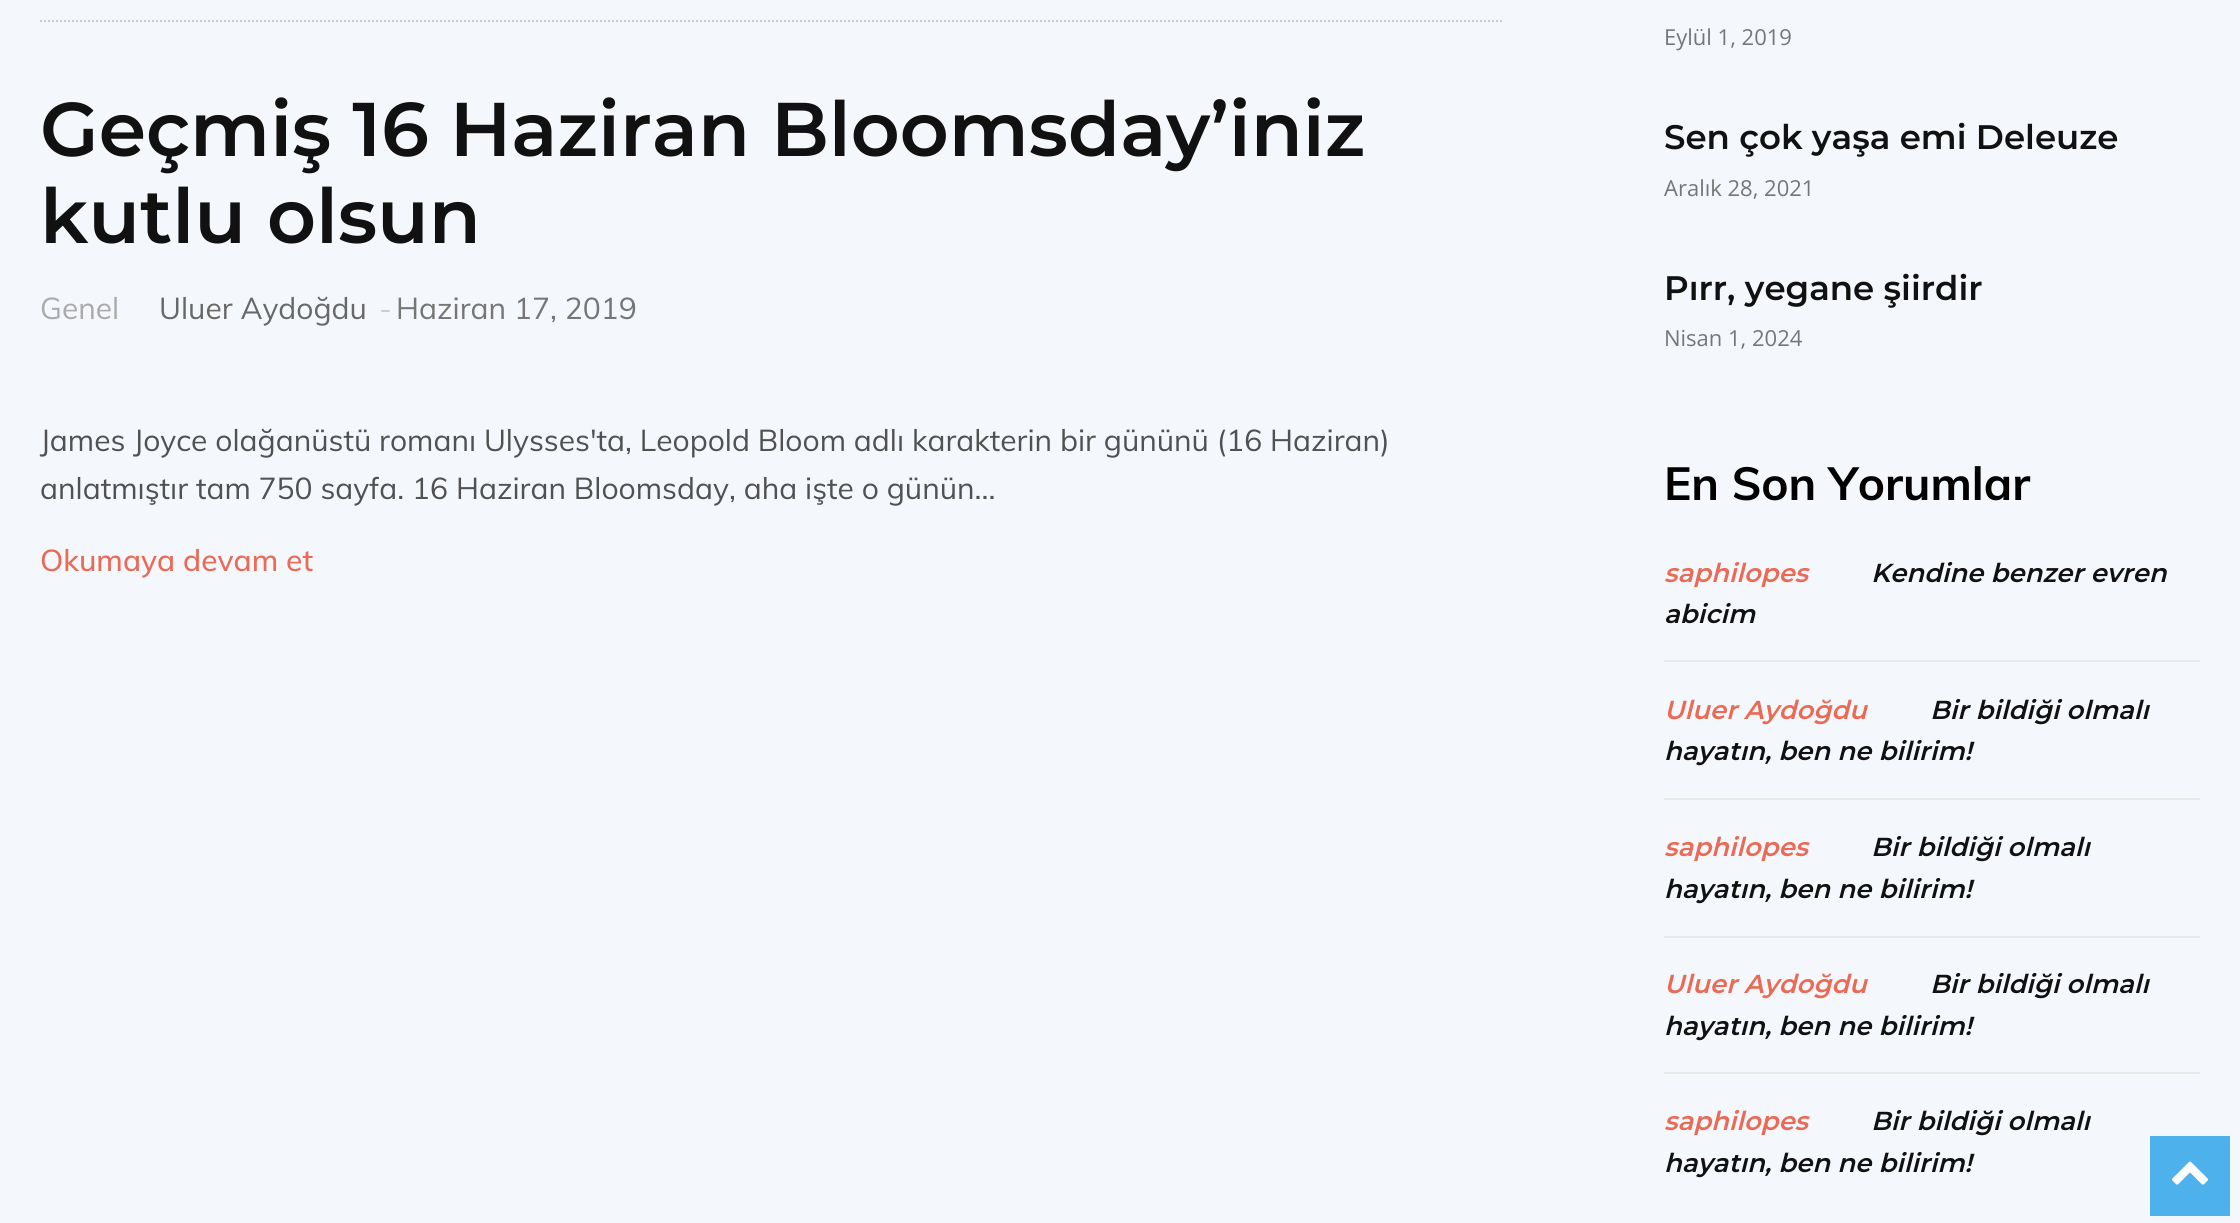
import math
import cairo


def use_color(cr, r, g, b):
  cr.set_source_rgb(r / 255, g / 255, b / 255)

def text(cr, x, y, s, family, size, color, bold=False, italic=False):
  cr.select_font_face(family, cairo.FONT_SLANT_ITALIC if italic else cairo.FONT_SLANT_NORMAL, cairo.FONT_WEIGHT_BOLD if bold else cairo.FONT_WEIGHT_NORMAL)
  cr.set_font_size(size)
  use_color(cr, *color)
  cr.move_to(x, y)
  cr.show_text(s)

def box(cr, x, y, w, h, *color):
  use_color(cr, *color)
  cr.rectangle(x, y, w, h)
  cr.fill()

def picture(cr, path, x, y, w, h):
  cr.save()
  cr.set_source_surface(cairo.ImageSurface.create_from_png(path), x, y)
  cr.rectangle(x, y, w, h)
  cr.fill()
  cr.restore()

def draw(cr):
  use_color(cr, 244, 247, 252)
  cr.paint()
  cr.new_path()
  cr.move_to(40, 21)
  cr.line_to(1504, 21)
  use_color(cr, 201, 201, 201)
  cr.set_dash([2, 2])
  cr.stroke()
  box(cr, 1664, 660, 536, 2, 234, 234, 234)
  box(cr, 1664, 798, 536, 2, 234, 234, 234)
  box(cr, 1664, 936, 536, 2, 234, 234, 234)
  box(cr, 1664, 1072, 536, 2, 234, 234, 234)
  box(cr, 2150, 1136, 80, 80, 77, 178, 236)
  picture(cr, "img_01.png", 2172, 1161, 36, 24)
  text(cr, 40, 156, "Geçmiş 16 Haziran Bloomsday’iniz", "Montserrat SemiBold", 76, (17, 17, 17))
  text(cr, 40, 243, "kutlu olsun", "Montserrat SemiBold", 76, (17, 17, 17))
  text(cr, 40, 319, "Genel", "Muli", 30, (170, 170, 170))
  text(cr, 159, 319, "Uluer Aydoğdu", "Muli", 30, (104, 104, 104))
  text(cr, 379, 319, "-", "Muli", 30, (204, 204, 204))
  text(cr, 396, 319, "Haziran 17, 2019", "Muli", 30, (118, 118, 118))
  text(cr, 40, 451, "James Joyce olağanüstü romanı Ulysses'ta, Leopold Bloom adlı karakterin bir gününü (16 Haziran)", "Muli", 30, (81, 81, 81))
  text(cr, 40, 499, "anlatmıştır tam 750 sayfa. 16 Haziran Bloomsday, aha işte o günün...", "Muli", 30, (81, 81, 81))
  text(cr, 40, 571, "Okumaya devam et", "Muli Medium", 30, (234, 106, 86))
  text(cr, 1664, 45, "Eylül 1, 2019", "Open Sans", 22, (118, 118, 118))
  text(cr, 1664, 149, "Sen çok yaşa emi Deleuze", "Montserrat SemiBold", 34, (17, 17, 17))
  text(cr, 1664, 196, "Aralık 28, 2021", "Open Sans", 22, (118, 118, 118))
  text(cr, 1664, 300, "Pırr, yegane şiirdir", "Montserrat SemiBold", 34, (17, 17, 17))
  text(cr, 1664, 346, "Nisan 1, 2024", "Open Sans", 22, (118, 118, 118))
  text(cr, 1664, 500, "En Son Yorumlar", "Muli", 46, (0, 0, 0), bold=True)
  text(cr, 1664, 582, "saphilopes", "Montserrat SemiBold", 26, (234, 106, 86), italic=True)
  text(cr, 1871, 582, "Kendine benzer evren", "Montserrat SemiBold", 26, (17, 17, 17), italic=True)
  text(cr, 1664, 623, "abicim", "Montserrat SemiBold", 26, (17, 17, 17), italic=True)
  text(cr, 1664, 719, "Uluer Aydoğdu", "Montserrat SemiBold", 26, (234, 106, 86), italic=True)
  text(cr, 1930, 719, "Bir bildiği olmalı", "Montserrat SemiBold", 26, (17, 17, 17), italic=True)
  text(cr, 1664, 760, "hayatın, ben ne bilirim!", "Montserrat SemiBold", 26, (17, 17, 17), italic=True)
  text(cr, 1664, 856, "saphilopes", "Montserrat SemiBold", 26, (234, 106, 86), italic=True)
  text(cr, 1871, 856, "Bir bildiği olmalı", "Montserrat SemiBold", 26, (17, 17, 17), italic=True)
  text(cr, 1664, 898, "hayatın, ben ne bilirim!", "Montserrat SemiBold", 26, (17, 17, 17), italic=True)
  text(cr, 1664, 993, "Uluer Aydoğdu", "Montserrat SemiBold", 26, (234, 106, 86), italic=True)
  text(cr, 1930, 993, "Bir bildiği olmalı", "Montserrat SemiBold", 26, (17, 17, 17), italic=True)
  text(cr, 1664, 1035, "hayatın, ben ne bilirim!", "Montserrat SemiBold", 26, (17, 17, 17), italic=True)
  text(cr, 1664, 1130, "saphilopes", "Montserrat SemiBold", 26, (234, 106, 86), italic=True)
  text(cr, 1871, 1130, "Bir bildiği olmalı", "Montserrat SemiBold", 26, (17, 17, 17), italic=True)
  text(cr, 1664, 1172, "hayatın, ben ne bilirim!", "Montserrat SemiBold", 26, (17, 17, 17), italic=True)


surface = cairo.ImageSurface(cairo.FORMAT_RGB24, 2240, 1223)
cr = cairo.Context(surface)
options = cairo.FontOptions()
options.set_hint_metrics(cairo.HINT_METRICS_OFF)
options.set_hint_style(cairo.HINT_STYLE_NONE)
cr.set_font_options(options)
cr.set_miter_limit(4)
draw(cr)
surface.write_to_png("out.png")
